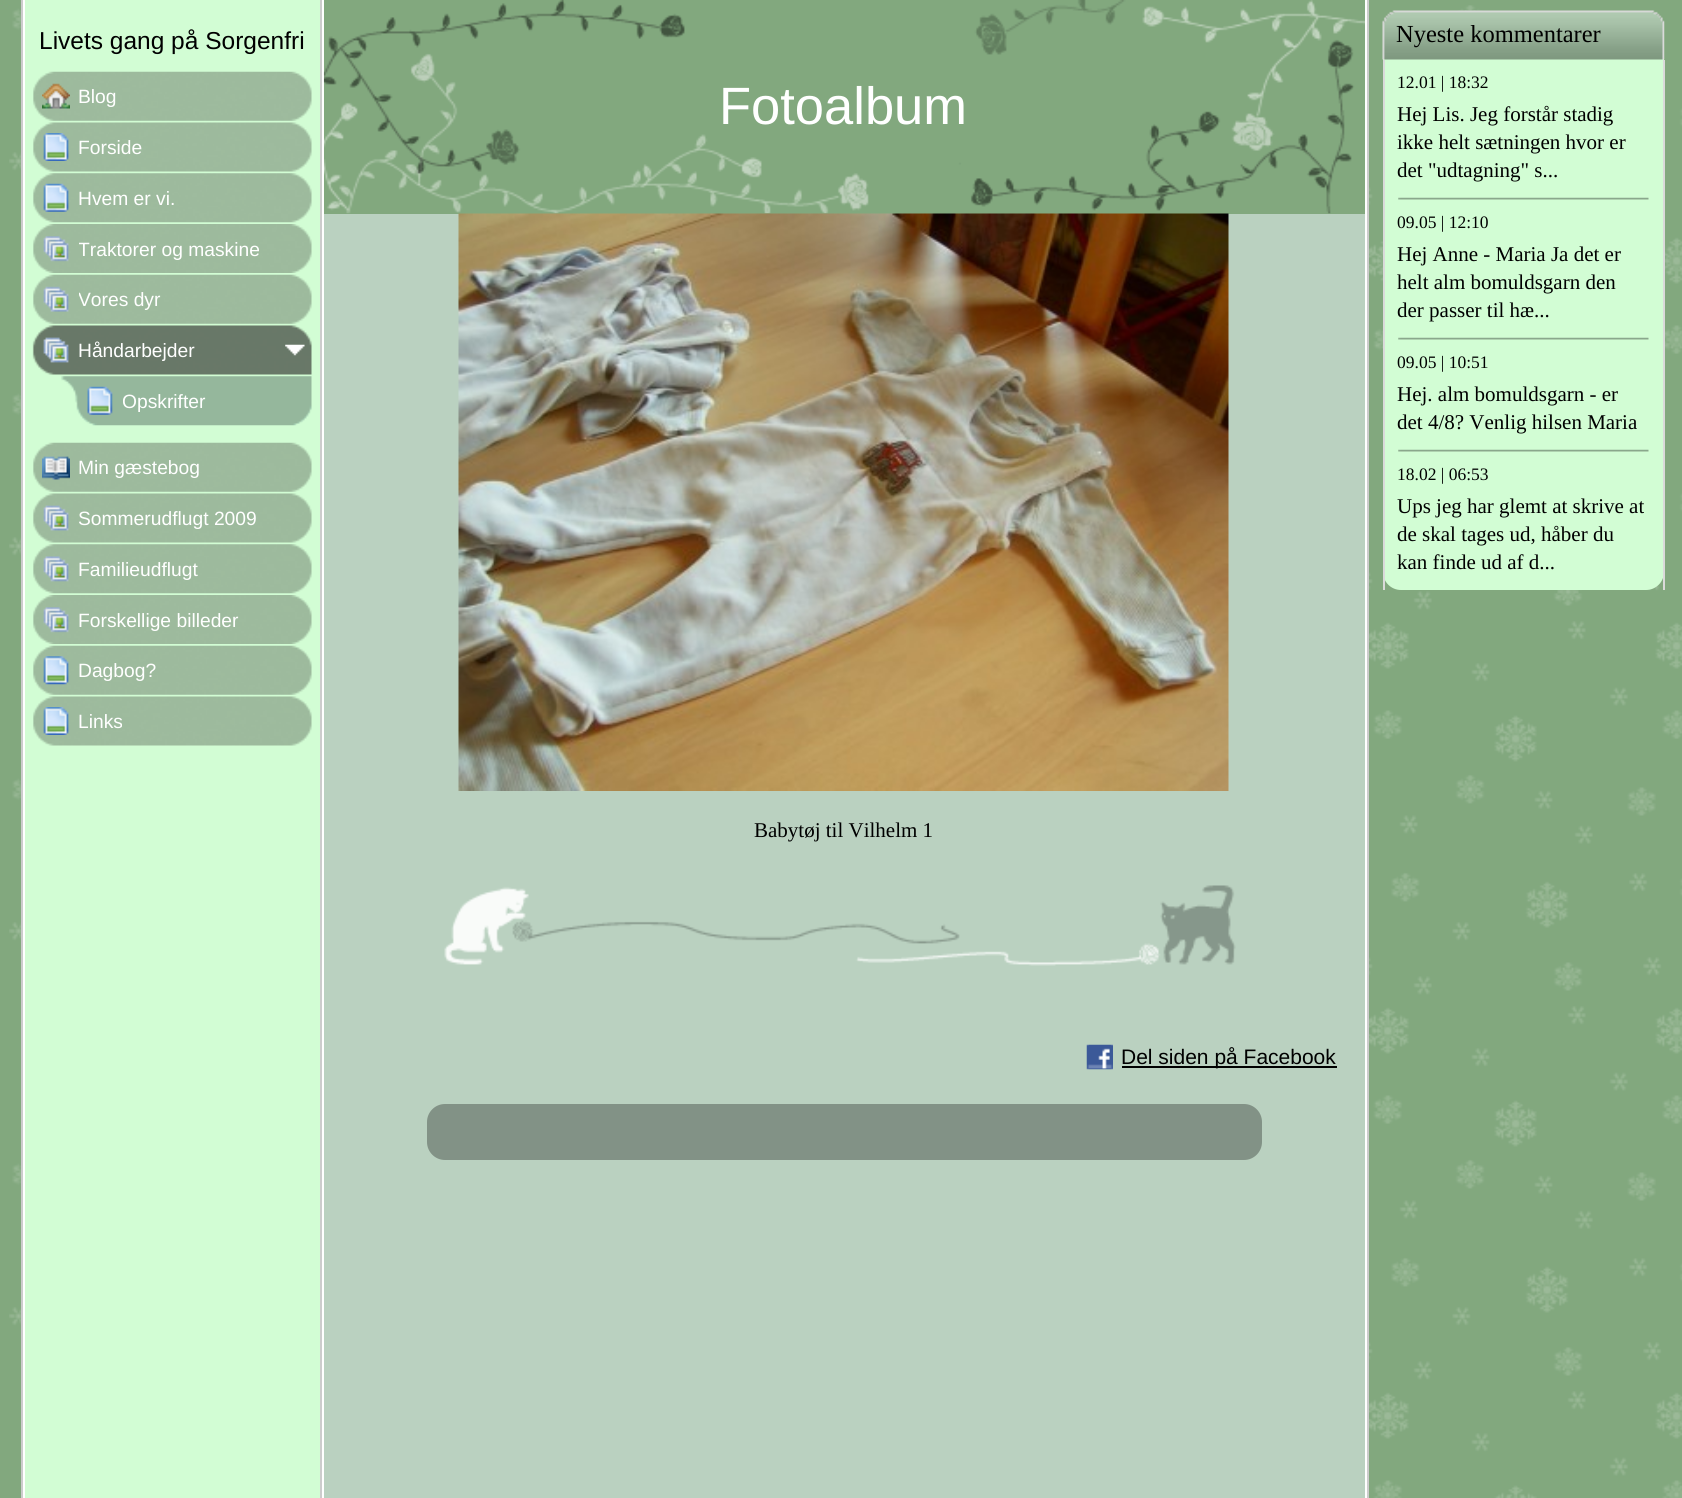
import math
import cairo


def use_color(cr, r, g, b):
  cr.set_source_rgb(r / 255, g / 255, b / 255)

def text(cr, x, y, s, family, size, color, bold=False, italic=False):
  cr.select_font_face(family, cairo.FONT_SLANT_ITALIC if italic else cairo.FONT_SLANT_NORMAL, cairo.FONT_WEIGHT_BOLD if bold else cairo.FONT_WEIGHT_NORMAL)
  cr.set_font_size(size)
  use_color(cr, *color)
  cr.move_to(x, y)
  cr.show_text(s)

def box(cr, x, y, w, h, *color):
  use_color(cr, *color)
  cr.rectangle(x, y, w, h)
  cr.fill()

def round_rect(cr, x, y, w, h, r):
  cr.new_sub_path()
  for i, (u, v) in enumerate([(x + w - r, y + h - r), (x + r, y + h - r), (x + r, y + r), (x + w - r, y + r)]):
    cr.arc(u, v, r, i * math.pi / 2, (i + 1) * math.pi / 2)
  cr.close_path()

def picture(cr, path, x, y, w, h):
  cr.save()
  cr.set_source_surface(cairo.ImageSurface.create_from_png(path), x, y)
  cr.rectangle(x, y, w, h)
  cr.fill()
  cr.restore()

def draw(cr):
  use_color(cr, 130, 168, 126)
  cr.paint()
  picture(cr, "img_01.png", 9, 5, 1673, 1493)
  box(cr, 23, 0, 1344, 1498, 255, 255, 255)
  box(cr, 21, 0, 2, 1498, 204, 204, 204)
  box(cr, 25, 0, 295, 1498, 210, 253, 212)
  picture(cr, "img_02.png", 33, 71, 279, 50)
  picture(cr, "img_03.png", 42, 83, 28, 26)
  picture(cr, "img_04.png", 33, 122, 279, 50)
  picture(cr, "img_05.png", 43, 133, 26, 28)
  picture(cr, "img_06.png", 33, 173, 279, 50)
  picture(cr, "img_07.png", 43, 183, 26, 29)
  picture(cr, "img_08.png", 33, 224, 279, 49)
  picture(cr, "img_09.png", 43, 236, 26, 26)
  picture(cr, "img_02.png", 33, 274, 279, 50)
  picture(cr, "img_10.png", 43, 286, 26, 26)
  picture(cr, "img_11.png", 32, 325, 280, 50)
  picture(cr, "img_12.png", 43, 337, 26, 26)
  picture(cr, "img_13.png", 285, 344, 20, 12)
  picture(cr, "img_14.png", 61, 376, 251, 50)
  picture(cr, "img_15.png", 87, 386, 26, 29)
  picture(cr, "img_02.png", 33, 442, 279, 50)
  picture(cr, "img_16.png", 42, 456, 28, 24)
  picture(cr, "img_04.png", 33, 493, 279, 50)
  picture(cr, "img_17.png", 43, 505, 26, 26)
  picture(cr, "img_06.png", 33, 544, 279, 50)
  picture(cr, "img_18.png", 43, 556, 26, 26)
  picture(cr, "img_08.png", 33, 595, 279, 49)
  picture(cr, "img_09.png", 43, 607, 26, 26)
  picture(cr, "img_02.png", 33, 645, 279, 50)
  picture(cr, "img_19.png", 43, 656, 26, 29)
  picture(cr, "img_04.png", 33, 696, 279, 50)
  picture(cr, "img_05.png", 43, 707, 26, 28)
  box(cr, 320, 0, 2, 1498, 204, 204, 204)
  box(cr, 324, 214, 1041, 1284, 186, 209, 192)
  box(cr, 324, 0, 1041, 214, 130, 168, 126)
  picture(cr, "img_20.png", 323, 0, 1042, 214)
  picture(cr, "img_21.png", 458, 213, 771, 578)
  picture(cr, "img_22.png", 444, 885, 792, 81)
  picture(cr, "img_23.png", 1086, 1044, 27, 26)
  box(cr, 1122, 1066, 215, 2, 0, 0, 0)
  use_color(cr, 130, 146, 134)
  round_rect(cr, 427, 1104, 835, 56, 18)
  cr.fill()
  box(cr, 1367, 0, 2, 1498, 204, 204, 204)
  use_color(cr, 210, 253, 212)
  round_rect(cr, 1383, 11, 281, 579, 18)
  cr.fill()
  picture(cr, "img_24.png", 1382, 10, 283, 50)
  box(cr, 1663, 60, 2, 530, 218, 218, 218)
  box(cr, 1383, 60, 2, 530, 218, 218, 218)
  picture(cr, "img_25.png", 1398, 197, 251, 3)
  picture(cr, "img_25.png", 1398, 337, 251, 3)
  picture(cr, "img_25.png", 1398, 449, 251, 3)
  text(cr, 39, 49, "Livets gang på Sorgenfri", "Liberation Sans", 24.5, (0, 0, 0))
  text(cr, 78, 103, "Blog", "Liberation Sans", 19.25, (255, 255, 255))
  text(cr, 78, 154, "Forside", "Liberation Sans", 19.25, (255, 255, 255))
  text(cr, 78, 205, "Hvem er vi.", "Liberation Sans", 19.25, (255, 255, 255))
  cr.save()
  cr.rectangle(79, 236, 199, 25)
  cr.clip()
  text(cr, 78, 256, "Traktorer og maskine", "Liberation Sans", 19.25, (255, 255, 255))
  cr.restore()
  cr.save()
  cr.rectangle(79, 287, 199, 25)
  cr.clip()
  text(cr, 78, 306, "Vores dyr", "Liberation Sans", 19.25, (255, 255, 255))
  cr.restore()
  text(cr, 78, 357, "Håndarbejder", "Liberation Sans", 19.25, (255, 255, 255))
  cr.save()
  cr.rectangle(123, 389, 173, 24)
  cr.clip()
  text(cr, 122, 408, "Opskrifter", "Liberation Sans", 19.25, (255, 255, 255))
  cr.restore()
  text(cr, 78, 474, "Min gæstebog", "Liberation Sans", 19.25, (255, 255, 255))
  text(cr, 78, 525, "Sommerudflugt 2009", "Liberation Sans", 19.25, (255, 255, 255))
  text(cr, 78, 576, "Familieudflugt", "Liberation Sans", 19.25, (255, 255, 255))
  text(cr, 78, 627, "Forskellige billeder", "Liberation Sans", 19.25, (255, 255, 255))
  text(cr, 78, 677, "Dagbog?", "Liberation Sans", 19.25, (255, 255, 255))
  text(cr, 78, 728, "Links", "Liberation Sans", 19.25, (255, 255, 255))
  text(cr, 719, 124, "Fotoalbum", "Liberation Sans", 52.5, (255, 255, 255))
  text(cr, 754, 837, "Babytøj til Vilhelm 1", "Liberation Serif", 21, (0, 0, 0))
  text(cr, 1121, 1064, "Del siden på Facebook", "Liberation Sans", 21, (0, 0, 0))
  text(cr, 1396, 42, "Nyeste kommentarer", "Liberation Serif", 24.5, (0, 0, 0))
  text(cr, 1397, 88, "12.01 | 18:32", "Liberation Serif", 17.5, (0, 0, 0))
  text(cr, 1397, 121, "Hej Lis. Jeg forstår stadig", "Liberation Serif", 21, (0, 0, 0))
  text(cr, 1397, 149, "ikke helt sætningen hvor er", "Liberation Serif", 21, (0, 0, 0))
  text(cr, 1397, 177, "det \"udtagning\" s...", "Liberation Serif", 21, (0, 0, 0))
  text(cr, 1397, 228, "09.05 | 12:10", "Liberation Serif", 17.5, (0, 0, 0))
  text(cr, 1397, 261, "Hej Anne - Maria Ja det er", "Liberation Serif", 21, (0, 0, 0))
  text(cr, 1397, 289, "helt alm bomuldsgarn den", "Liberation Serif", 21, (0, 0, 0))
  text(cr, 1397, 317, "der passer til hæ...", "Liberation Serif", 21, (0, 0, 0))
  text(cr, 1397, 368, "09.05 | 10:51", "Liberation Serif", 17.5, (0, 0, 0))
  text(cr, 1397, 401, "Hej. alm bomuldsgarn - er", "Liberation Serif", 21, (0, 0, 0))
  text(cr, 1397, 429, "det 4/8? Venlig hilsen Maria", "Liberation Serif", 21, (0, 0, 0))
  text(cr, 1397, 480, "18.02 | 06:53", "Liberation Serif", 17.5, (0, 0, 0))
  text(cr, 1397, 513, "Ups jeg har glemt at skrive at", "Liberation Serif", 21, (0, 0, 0))
  text(cr, 1397, 541, "de skal tages ud, håber du", "Liberation Serif", 21, (0, 0, 0))
  text(cr, 1397, 569, "kan finde ud af d...", "Liberation Serif", 21, (0, 0, 0))


surface = cairo.ImageSurface(cairo.FORMAT_RGB24, 1682, 1498)
cr = cairo.Context(surface)
options = cairo.FontOptions()
options.set_hint_metrics(cairo.HINT_METRICS_OFF)
options.set_hint_style(cairo.HINT_STYLE_NONE)
cr.set_font_options(options)
cr.set_miter_limit(4)
draw(cr)
surface.write_to_png("out.png")
